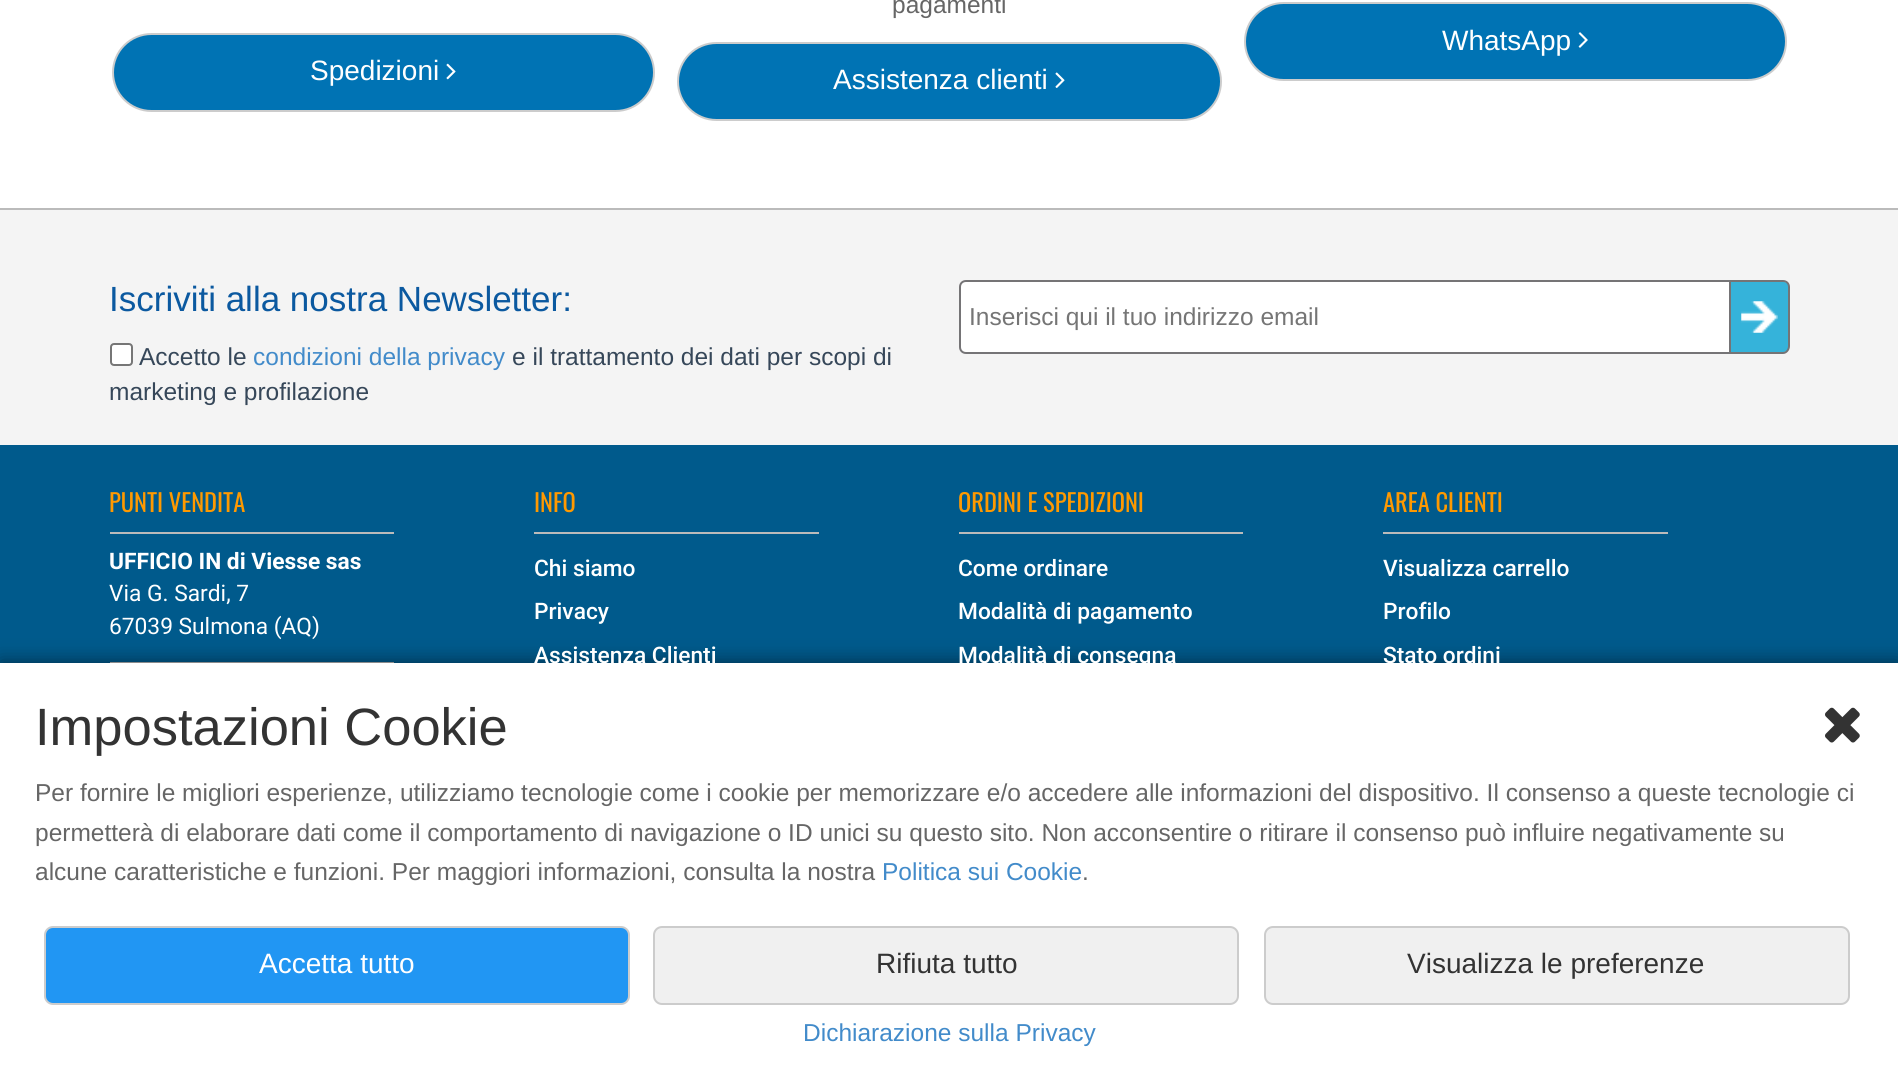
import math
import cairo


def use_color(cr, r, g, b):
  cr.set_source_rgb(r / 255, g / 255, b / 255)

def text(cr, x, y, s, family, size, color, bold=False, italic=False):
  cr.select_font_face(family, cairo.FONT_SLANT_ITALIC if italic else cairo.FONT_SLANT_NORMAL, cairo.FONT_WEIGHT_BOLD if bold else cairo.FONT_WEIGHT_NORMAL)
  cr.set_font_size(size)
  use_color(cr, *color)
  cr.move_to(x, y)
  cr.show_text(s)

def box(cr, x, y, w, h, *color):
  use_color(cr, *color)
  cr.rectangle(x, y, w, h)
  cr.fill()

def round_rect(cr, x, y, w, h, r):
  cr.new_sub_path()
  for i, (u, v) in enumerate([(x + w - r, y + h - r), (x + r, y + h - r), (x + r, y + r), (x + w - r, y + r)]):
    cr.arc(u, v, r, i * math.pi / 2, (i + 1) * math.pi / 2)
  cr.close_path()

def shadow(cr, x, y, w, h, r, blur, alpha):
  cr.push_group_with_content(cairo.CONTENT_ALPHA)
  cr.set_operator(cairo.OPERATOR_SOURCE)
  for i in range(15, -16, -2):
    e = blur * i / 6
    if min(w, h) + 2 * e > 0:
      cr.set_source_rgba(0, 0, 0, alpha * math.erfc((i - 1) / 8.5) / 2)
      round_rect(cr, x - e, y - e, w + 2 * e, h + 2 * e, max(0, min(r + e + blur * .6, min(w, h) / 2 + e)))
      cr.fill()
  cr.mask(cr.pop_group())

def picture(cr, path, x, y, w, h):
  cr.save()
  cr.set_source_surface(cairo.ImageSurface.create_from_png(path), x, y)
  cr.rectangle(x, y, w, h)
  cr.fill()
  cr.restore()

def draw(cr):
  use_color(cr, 255, 255, 255)
  cr.paint()
  use_color(cr, 0, 115, 180)
  round_rect(cr, 678, 43, 543, 77, 38.5)
  cr.fill_preserve()
  use_color(cr, 204, 204, 204)
  cr.stroke()
  picture(cr, "img_01.png", 1055, 72, 10, 16)
  use_color(cr, 0, 115, 180)
  round_rect(cr, 1245, 3, 541, 77, 38.5)
  cr.fill_preserve()
  use_color(cr, 204, 204, 204)
  cr.stroke()
  picture(cr, "img_02.png", 1578, 32, 10, 16)
  use_color(cr, 0, 115, 180)
  round_rect(cr, 113, 34, 541, 77, 38.5)
  cr.fill_preserve()
  use_color(cr, 204, 204, 204)
  cr.stroke()
  picture(cr, "img_03.png", 446, 63, 10, 17)
  box(cr, 0, 210, 1898, 235, 244, 244, 244)
  box(cr, 0, 208, 1898, 2, 187, 187, 187)
  use_color(cr, 255, 255, 255)
  round_rect(cr, 111, 344, 21, 21, 3)
  cr.fill_preserve()
  use_color(cr, 118, 118, 118)
  cr.stroke()
  use_color(cr, 255, 255, 255)
  cr.new_path()
  cr.move_to(966, 281)
  cr.line_to(1730, 281)
  cr.line_to(1730, 353)
  cr.line_to(966, 353)
  cr.curve_to(962.5, 353, 960, 350.5, 960, 347)
  cr.line_to(960, 287)
  cr.curve_to(960, 283.5, 962.5, 281, 966, 281)
  cr.close_path()
  cr.fill_preserve()
  use_color(cr, 117, 116, 118)
  cr.stroke()
  use_color(cr, 53, 179, 218)
  cr.new_path()
  cr.move_to(1731, 282)
  cr.line_to(1784, 282)
  cr.curve_to(1787, 282, 1789, 284, 1789, 287)
  cr.line_to(1789, 347)
  cr.curve_to(1789, 350, 1787, 352, 1784, 352)
  cr.line_to(1731, 352)
  cr.close_path()
  cr.fill()
  picture(cr, "img_04.png", 1741, 301, 37, 32)
  use_color(cr, 117, 116, 118)
  cr.set_fill_rule(cairo.FILL_RULE_EVEN_ODD)
  cr.new_path()
  cr.move_to(1731, 280)
  cr.line_to(1783, 280)
  cr.curve_to(1787, 280, 1790, 283, 1790, 287)
  cr.line_to(1790, 346)
  cr.curve_to(1790, 350, 1787, 354, 1783, 354)
  cr.line_to(1731, 354)
  cr.close_path()
  cr.move_to(1731, 282)
  cr.line_to(1783, 282)
  cr.curve_to(1786, 282, 1788, 284, 1788, 287)
  cr.line_to(1788, 346)
  cr.curve_to(1788, 349, 1786, 352, 1783, 352)
  cr.line_to(1731, 352)
  cr.close_path()
  cr.fill()
  box(cr, 0, 445, 1898, 218, 0, 90, 140)
  box(cr, 110, 532, 284, 2, 187, 187, 187)
  box(cr, 110, 662, 284, 1, 187, 187, 187)
  box(cr, 534, 532, 285, 2, 187, 187, 187)
  box(cr, 959, 532, 284, 2, 187, 187, 187)
  box(cr, 1383, 532, 285, 2, 187, 187, 187)
  use_color(cr, 0, 0, 0)
  shadow(cr, 0, 660, 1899, 422, 0, 9, 0.4)
  box(cr, 0, 663, 1898, 422, 255, 255, 255)
  picture(cr, "img_05.png", 1825, 707, 35, 36)
  use_color(cr, 33, 150, 243)
  round_rect(cr, 45, 927, 584, 77, 8)
  cr.fill_preserve()
  use_color(cr, 204, 204, 204)
  cr.stroke()
  use_color(cr, 240, 240, 240)
  round_rect(cr, 654, 927, 584, 77, 8)
  cr.fill_preserve()
  use_color(cr, 204, 204, 204)
  cr.stroke()
  use_color(cr, 240, 240, 240)
  round_rect(cr, 1265, 927, 584, 77, 8)
  cr.fill_preserve()
  use_color(cr, 204, 204, 204)
  cr.stroke()
  text(cr, 892, 13, "pagamenti", "Liberation Sans", 24.5, (102, 102, 102))
  text(cr, 833, 89, "Assistenza clienti", "Liberation Sans", 28, (255, 255, 255))
  text(cr, 1442, 50, "WhatsApp", "Liberation Sans", 28, (255, 255, 255))
  text(cr, 310, 80, "Spedizioni", "Liberation Sans", 28, (255, 255, 255))
  text(cr, 109, 311, "Iscriviti alla nostra Newsletter:", "Liberation Sans", 35, (11, 89, 160))
  text(cr, 139, 365, "Accetto le", "Liberation Sans", 24.5, (54, 71, 89))
  text(cr, 253, 365, "condizioni della privacy", "Liberation Sans", 24.5, (66, 139, 202))
  text(cr, 512, 365, "e il trattamento dei dati per scopi di", "Liberation Sans", 24.5, (54, 71, 89))
  text(cr, 109, 400, "marketing e profilazione", "Liberation Sans", 24.5, (54, 71, 89))
  text(cr, 969, 325, "Inserisci qui il tuo indirizzo email", "Liberation Sans", 24.5, (117, 117, 117))
  text(cr, 109, 512, "PUNTI VENDITA", "Oswald", 24.5, (255, 153, 0))
  text(cr, 109, 569, "UFFICIO IN di Viesse sas", "Roboto", 22.75, (255, 255, 255), bold=True)
  text(cr, 109, 601, "Via G. Sardi, 7", "Roboto", 22.75, (255, 255, 255))
  text(cr, 109, 634, "67039 Sulmona (AQ)", "Roboto", 22.75, (255, 255, 255))
  text(cr, 534, 512, "INFO", "Oswald", 24.5, (255, 153, 0))
  text(cr, 534, 576, "Chi siamo", "Roboto Medium", 22.75, (255, 255, 255))
  text(cr, 534, 619, "Privacy", "Roboto Medium", 22.75, (255, 255, 255))
  text(cr, 534, 663, "Assistenza Clienti", "Roboto Medium", 22.75, (255, 255, 255))
  text(cr, 958, 512, "ORDINI E SPEDIZIONI", "Oswald", 24.5, (255, 153, 0))
  text(cr, 958, 576, "Come ordinare", "Roboto Medium", 22.75, (255, 255, 255))
  text(cr, 958, 619, "Modalità di pagamento", "Roboto Medium", 22.75, (255, 255, 255))
  text(cr, 958, 663, "Modalità di consegna", "Roboto Medium", 22.75, (255, 255, 255))
  text(cr, 1383, 512, "AREA CLIENTI", "Oswald", 24.5, (255, 153, 0))
  text(cr, 1383, 576, "Visualizza carrello", "Roboto Medium", 22.75, (255, 255, 255))
  text(cr, 1383, 619, "Profilo", "Roboto Medium", 22.75, (255, 255, 255))
  text(cr, 1383, 663, "Stato ordini", "Roboto Medium", 22.75, (255, 255, 255))
  text(cr, 35, 745, "Impostazioni Cookie", "Liberation Sans", 52.5, (51, 51, 51))
  text(cr, 35, 801, "Per fornire le migliori esperienze, utilizziamo tecnologie come i cookie per memorizzare e/o accedere alle informazioni del dispositivo. Il consenso a queste tecnologie ci", "Liberation Sans", 24.5, (102, 102, 102))
  text(cr, 35, 841, "permetterà di elaborare dati come il comportamento di navigazione o ID unici su questo sito. Non acconsentire o ritirare il consenso può influire negativamente su", "Liberation Sans", 24.5, (102, 102, 102))
  text(cr, 35, 880, "alcune caratteristiche e funzioni. Per maggiori informazioni, consulta la nostra", "Liberation Sans", 24.5, (102, 102, 102))
  text(cr, 882, 880, "Politica sui Cookie", "Liberation Sans", 24.5, (66, 139, 202))
  text(cr, 1082, 880, ".", "Liberation Sans", 24.5, (102, 102, 102))
  text(cr, 259, 973, "Accetta tutto", "Liberation Sans", 28, (255, 255, 255))
  text(cr, 876, 973, "Rifiuta tutto", "Liberation Sans", 28, (51, 51, 51))
  text(cr, 1407, 973, "Visualizza le preferenze", "Liberation Sans", 28, (51, 51, 51))
  text(cr, 803, 1041, "Dichiarazione sulla Privacy", "Liberation Sans", 24.5, (66, 139, 202))


surface = cairo.ImageSurface(cairo.FORMAT_RGB24, 1898, 1085)
cr = cairo.Context(surface)
options = cairo.FontOptions()
options.set_hint_metrics(cairo.HINT_METRICS_OFF)
options.set_hint_style(cairo.HINT_STYLE_NONE)
cr.set_font_options(options)
cr.set_miter_limit(4)
draw(cr)
surface.write_to_png("out.png")
